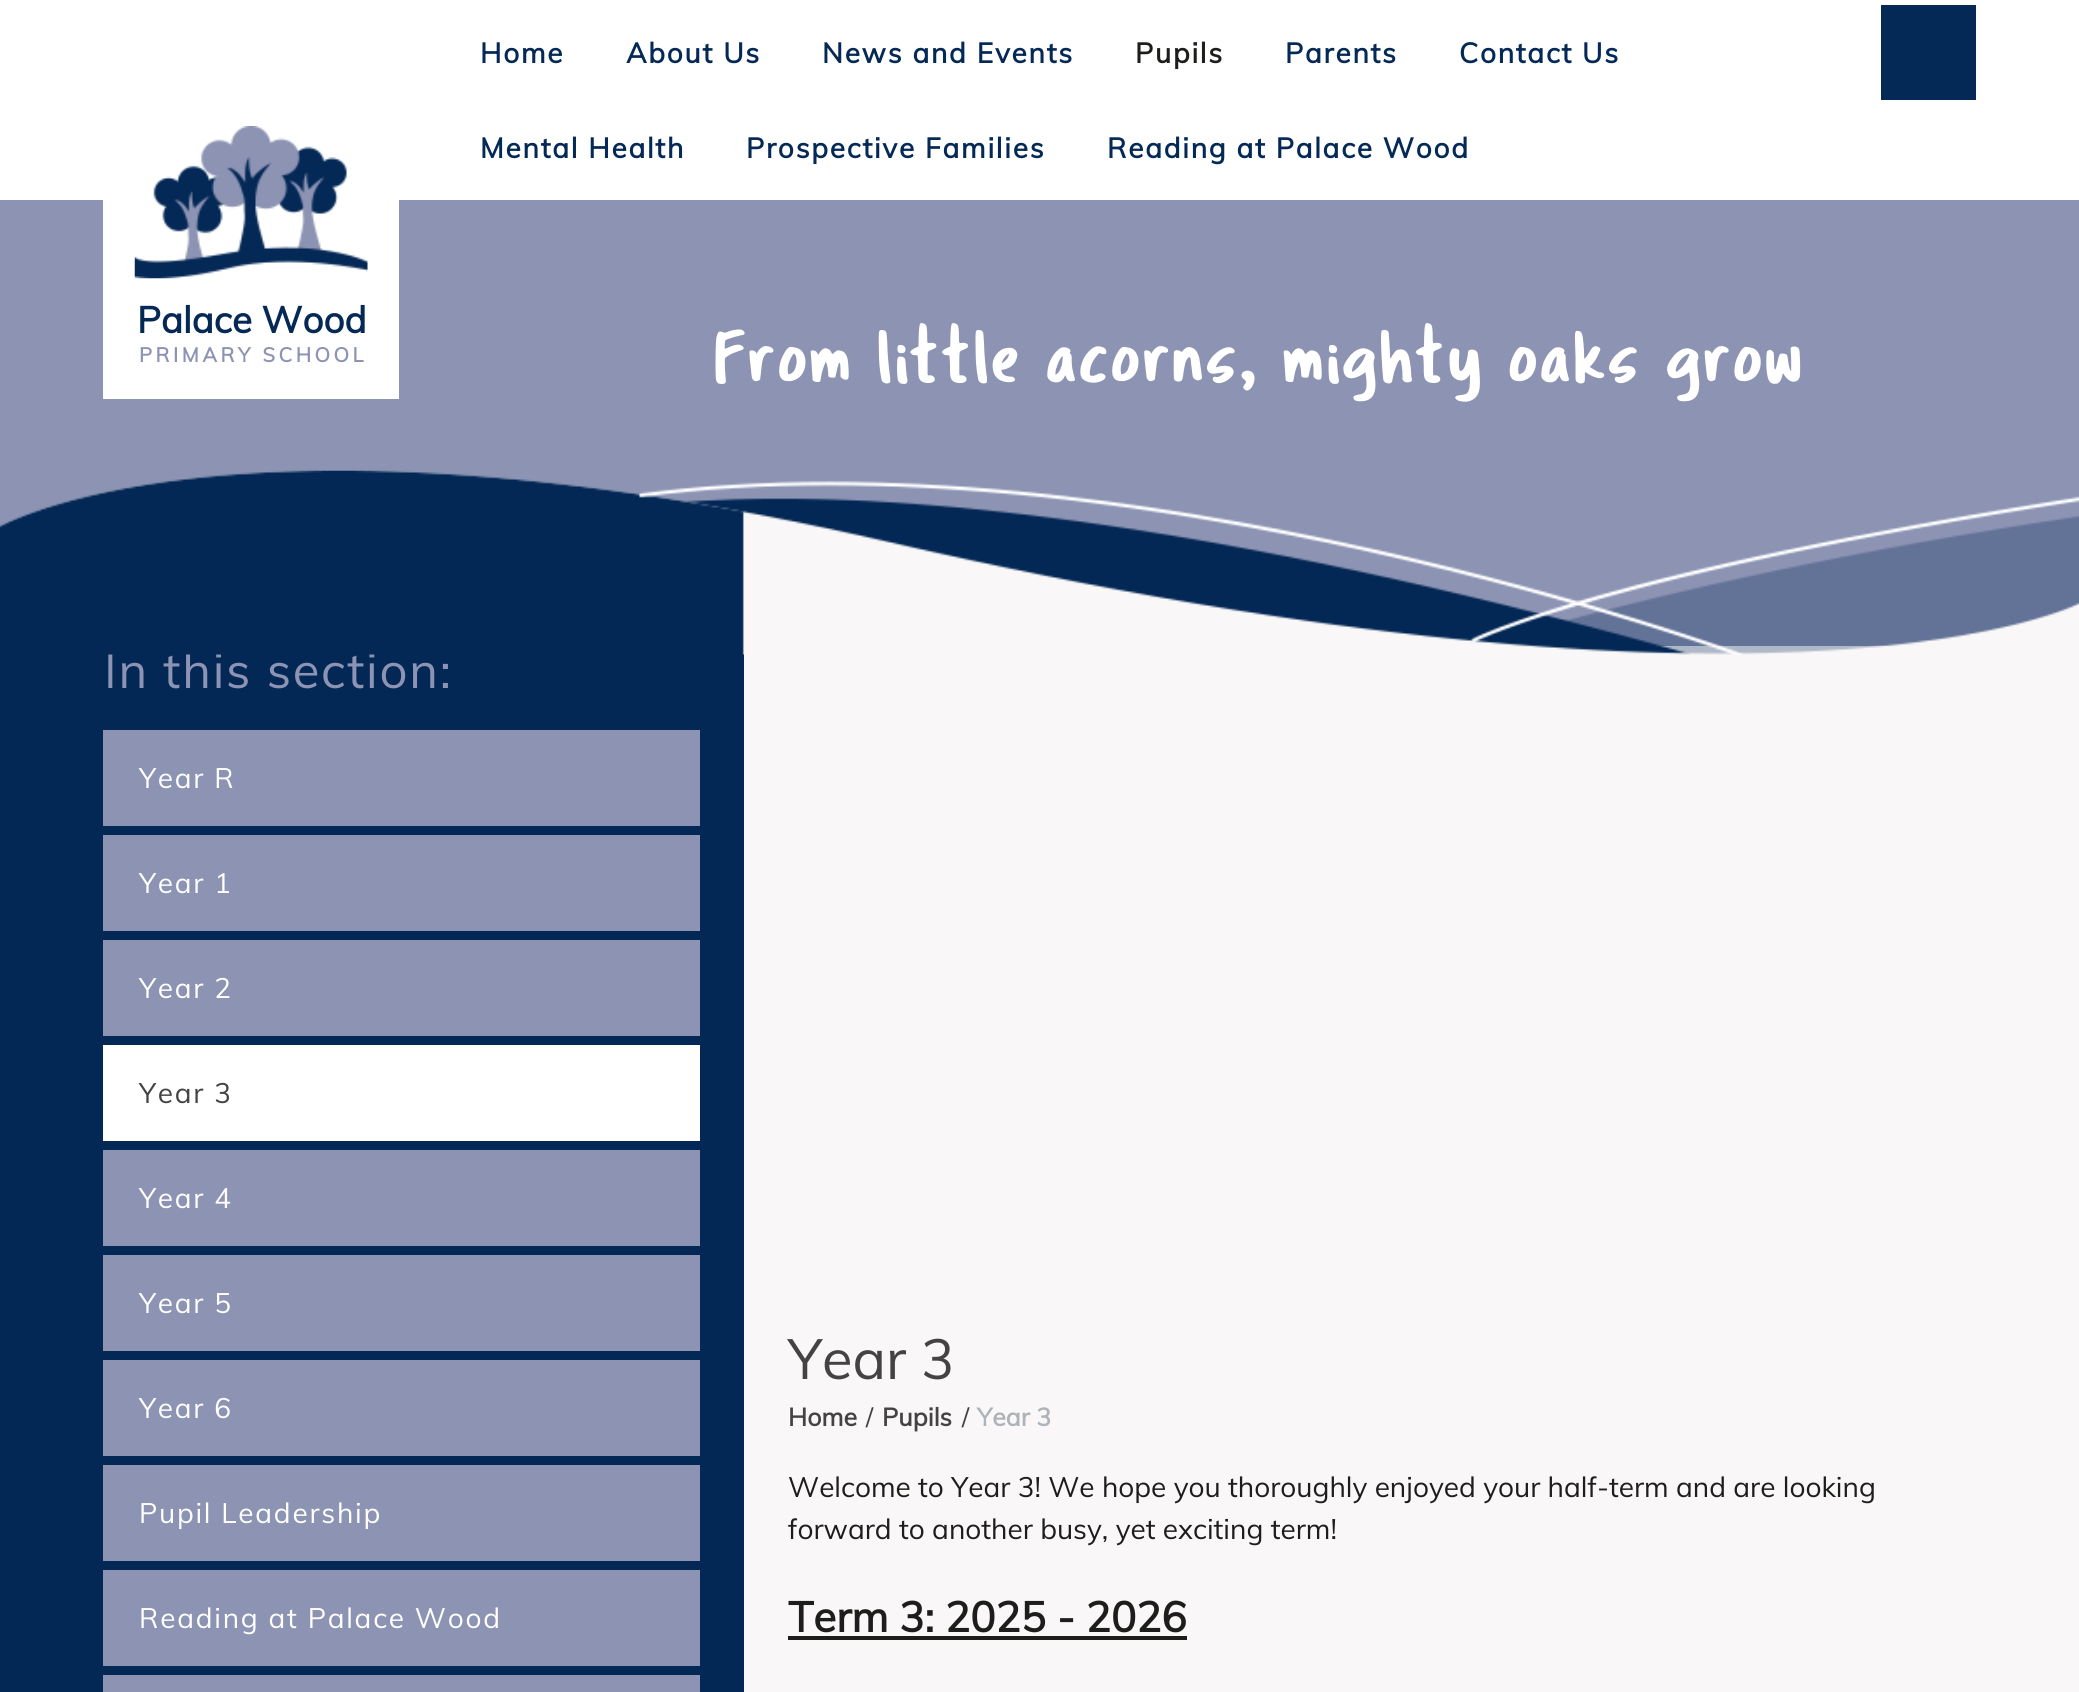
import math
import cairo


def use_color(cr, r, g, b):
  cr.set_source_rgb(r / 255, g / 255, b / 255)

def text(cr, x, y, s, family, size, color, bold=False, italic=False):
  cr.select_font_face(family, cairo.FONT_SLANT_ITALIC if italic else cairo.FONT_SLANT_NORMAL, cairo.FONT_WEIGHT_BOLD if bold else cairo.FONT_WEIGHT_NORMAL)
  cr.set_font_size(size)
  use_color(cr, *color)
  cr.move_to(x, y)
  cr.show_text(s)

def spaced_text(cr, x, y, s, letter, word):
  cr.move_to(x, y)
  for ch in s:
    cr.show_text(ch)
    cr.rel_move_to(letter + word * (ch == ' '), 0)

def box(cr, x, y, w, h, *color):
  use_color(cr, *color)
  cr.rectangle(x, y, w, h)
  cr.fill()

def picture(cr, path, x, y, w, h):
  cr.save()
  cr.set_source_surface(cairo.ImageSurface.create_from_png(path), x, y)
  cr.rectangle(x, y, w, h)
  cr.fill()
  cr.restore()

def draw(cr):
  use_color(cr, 249, 247, 248)
  cr.paint()
  box(cr, 0, 0, 2079, 200, 255, 255, 255)
  box(cr, 1881, 5, 95, 95, 5, 41, 86)
  box(cr, 0, 200, 2079, 446, 140, 147, 179)
  box(cr, 103, 200, 296, 199, 255, 255, 255)
  picture(cr, "img_01.png", 134, 126, 234, 153)
  box(cr, 0, 654, 744, 1038, 3, 40, 85)
  box(cr, 103, 730, 597, 96, 140, 147, 179)
  box(cr, 103, 835, 597, 96, 140, 147, 179)
  box(cr, 103, 940, 597, 96, 140, 147, 179)
  box(cr, 103, 1045, 597, 96, 255, 255, 255)
  box(cr, 103, 1150, 597, 96, 140, 147, 179)
  box(cr, 103, 1255, 597, 96, 140, 147, 179)
  box(cr, 103, 1360, 597, 96, 140, 147, 179)
  box(cr, 103, 1465, 597, 96, 140, 147, 179)
  box(cr, 103, 1570, 597, 96, 140, 147, 179)
  box(cr, 103, 1675, 597, 17, 140, 147, 179)
  box(cr, 788, 1636, 399, 4, 29, 29, 27)
  cr.select_font_face("Muli", cairo.FONT_SLANT_NORMAL, cairo.FONT_WEIGHT_BOLD)
  cr.set_font_size(28)
  use_color(cr, 5, 41, 86)
  spaced_text(cr, 480, 63, "Home", 1.75, 0)
  spaced_text(cr, 626, 63, "About Us", 1.75, 0)
  spaced_text(cr, 822, 63, "News and Events", 1.75, 0)
  use_color(cr, 29, 29, 27)
  spaced_text(cr, 1135, 63, "Pupils", 1.75, 0)
  use_color(cr, 5, 41, 86)
  spaced_text(cr, 1285, 63, "Parents", 1.75, 0)
  spaced_text(cr, 1459, 63, "Contact Us", 1.75, 0)
  spaced_text(cr, 480, 158, "Mental Health", 1.75, 0)
  spaced_text(cr, 746, 158, "Prospective Families", 1.75, 0)
  spaced_text(cr, 1107, 158, "Reading at Palace Wood", 1.75, 0)
  text(cr, 137, 333, "Palace Wood", "Muli", 36.75, (5, 41, 86), bold=True)
  cr.set_font_size(20.1)
  use_color(cr, 140, 147, 179)
  spaced_text(cr, 139, 362, "PRIMARY SCHOOL", 3.5, 0)
  cr.select_font_face("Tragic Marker")
  cr.set_font_size(77)
  use_color(cr, 255, 255, 255)
  spaced_text(cr, 713, 384, "From little acorns, mighty oaks grow", 1.75, 0)
  cr.select_font_face("Muli")
  cr.set_font_size(49)
  use_color(cr, 140, 147, 179)
  spaced_text(cr, 104, 688, "In this section:", 1.75, 0)
  picture(cr, "img_02.png", 0, 470, 2079, 185)
  cr.set_font_size(28)
  use_color(cr, 255, 255, 255)
  spaced_text(cr, 139, 788, "Year R", 1.75, 0)
  spaced_text(cr, 139, 893, "Year 1", 1.75, 0)
  spaced_text(cr, 139, 998, "Year 2", 1.75, 0)
  use_color(cr, 67, 67, 67)
  spaced_text(cr, 139, 1103, "Year 3", 1.75, 0)
  use_color(cr, 255, 255, 255)
  spaced_text(cr, 139, 1208, "Year 4", 1.75, 0)
  spaced_text(cr, 139, 1313, "Year 5", 1.75, 0)
  spaced_text(cr, 139, 1418, "Year 6", 1.75, 0)
  spaced_text(cr, 139, 1523, "Pupil Leadership", 1.75, 0)
  spaced_text(cr, 139, 1628, "Reading at Palace Wood", 1.75, 0)
  text(cr, 788, 1379, "Year 3", "Muli", 56, (67, 67, 67))
  text(cr, 788, 1426, "Home", "Muli", 25, (67, 67, 67), bold=True)
  text(cr, 866, 1426, "/", "Muli", 25, (67, 67, 67))
  text(cr, 882, 1426, "Pupils", "Muli", 25, (67, 67, 67), bold=True)
  text(cr, 962, 1426, "/", "Muli", 25, (67, 67, 67))
  text(cr, 977, 1426, "Year 3", "Muli", 25, (173, 179, 185), bold=True)
  text(cr, 788, 1497, "Welcome to Year 3! We hope you thoroughly enjoyed your half-term and are looking", "Muli", 28, (29, 29, 27))
  text(cr, 788, 1539, "forward to another busy, yet exciting term!", "Muli", 28, (29, 29, 27))
  text(cr, 788, 1632, "Term 3: 2025 - 2026", "Muli", 42, (29, 29, 27), bold=True)


surface = cairo.ImageSurface(cairo.FORMAT_RGB24, 2079, 1692)
cr = cairo.Context(surface)
options = cairo.FontOptions()
options.set_hint_metrics(cairo.HINT_METRICS_OFF)
options.set_hint_style(cairo.HINT_STYLE_NONE)
cr.set_font_options(options)
cr.set_miter_limit(4)
draw(cr)
surface.write_to_png("out.png")
